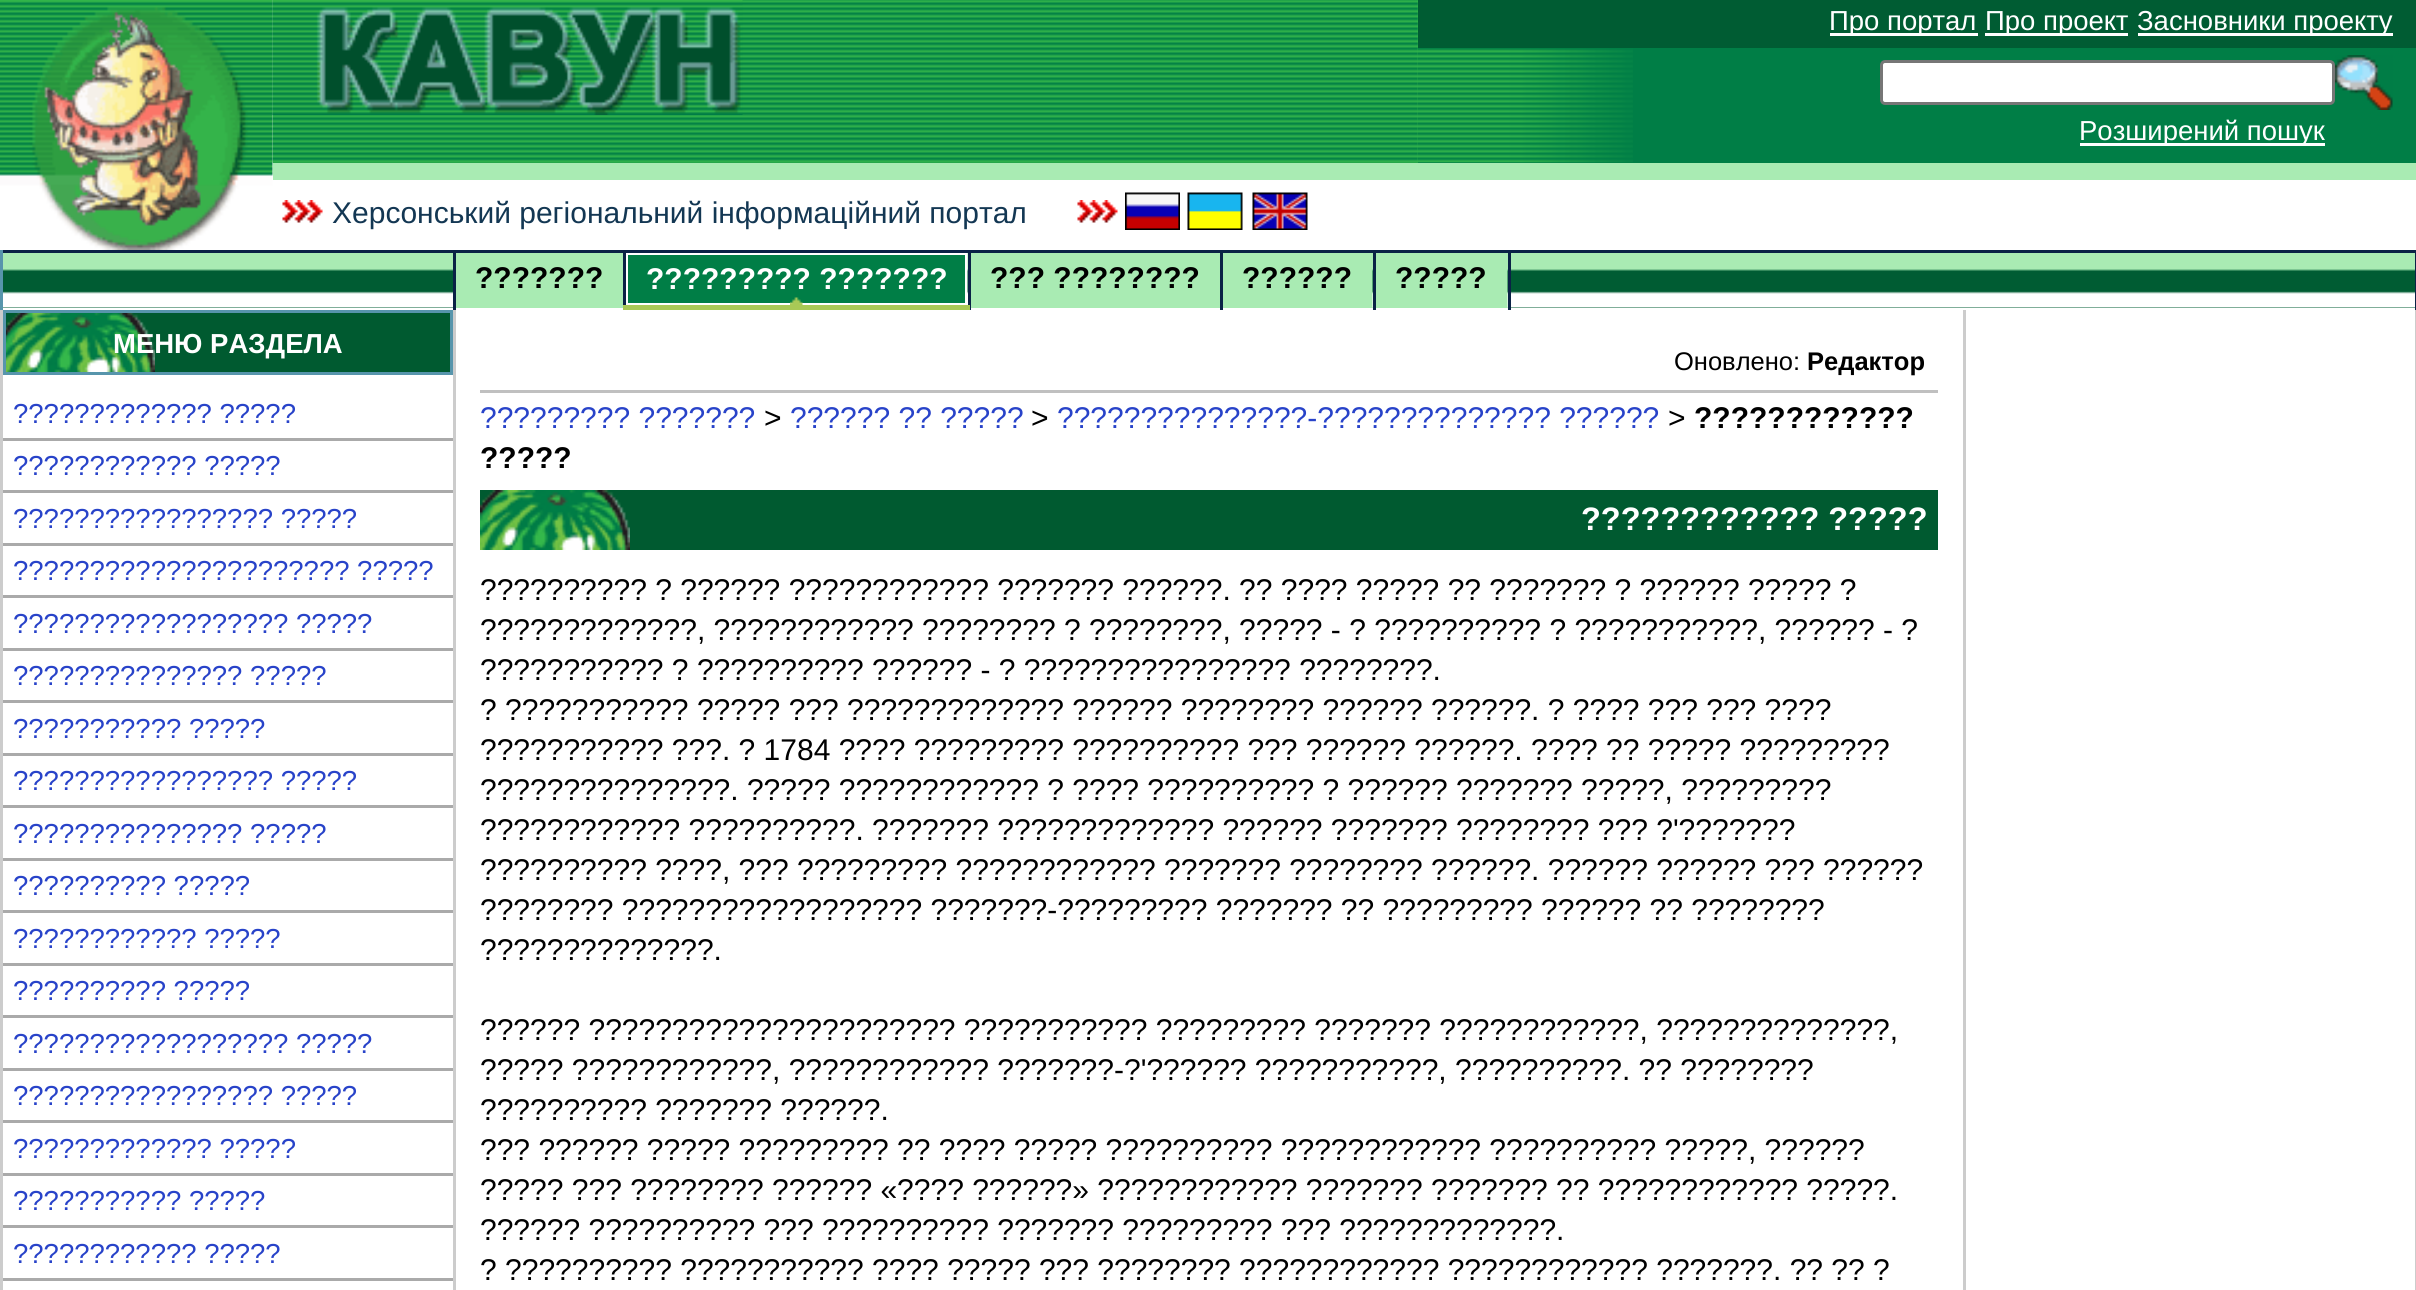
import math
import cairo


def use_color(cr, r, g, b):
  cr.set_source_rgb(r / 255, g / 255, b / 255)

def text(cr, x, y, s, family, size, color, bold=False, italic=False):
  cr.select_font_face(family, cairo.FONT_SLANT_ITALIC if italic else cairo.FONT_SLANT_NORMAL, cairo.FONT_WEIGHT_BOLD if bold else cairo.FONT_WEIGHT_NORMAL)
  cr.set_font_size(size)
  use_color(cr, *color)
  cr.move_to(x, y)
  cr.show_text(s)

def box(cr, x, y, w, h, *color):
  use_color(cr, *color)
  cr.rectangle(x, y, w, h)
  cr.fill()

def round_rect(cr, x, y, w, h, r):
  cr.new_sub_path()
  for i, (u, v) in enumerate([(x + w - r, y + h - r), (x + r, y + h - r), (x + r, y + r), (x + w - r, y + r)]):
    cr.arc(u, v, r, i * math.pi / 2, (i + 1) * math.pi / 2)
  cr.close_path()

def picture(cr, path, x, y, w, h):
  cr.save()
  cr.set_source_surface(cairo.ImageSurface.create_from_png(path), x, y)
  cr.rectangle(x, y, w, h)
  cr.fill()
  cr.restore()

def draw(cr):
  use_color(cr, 255, 255, 255)
  cr.paint()
  box(cr, 273, 0, 1145, 163, 50, 180, 74)
  picture(cr, "img_02.png", 272, 0, 1146, 163)
  picture(cr, "img_01.png", 0, 0, 273, 250)
  picture(cr, "img_03.png", 272, 0, 471, 115)
  box(cr, 1418, 48, 998, 115, 0, 126, 70)
  picture(cr, "img_04.png", 1417, 0, 216, 163)
  box(cr, 1418, 0, 998, 48, 0, 92, 51)
  box(cr, 1830, 33, 148, 3, 255, 255, 255)
  box(cr, 1985, 33, 143, 3, 255, 255, 255)
  box(cr, 2138, 33, 255, 3, 255, 255, 255)
  round_rect(cr, 1881.5, 61.5, 452, 42, 3.5)
  cr.fill_preserve()
  use_color(cr, 118, 118, 118)
  cr.set_line_width(3)
  cr.stroke()
  picture(cr, "img_05.png", 2335, 55, 58, 55)
  box(cr, 2080, 143, 245, 3, 255, 255, 255)
  box(cr, 273, 163, 2143, 17, 169, 235, 179)
  picture(cr, "img_06.png", 282, 200, 41, 23)
  picture(cr, "img_06.png", 1077, 200, 41, 23)
  picture(cr, "img_07.png", 1125, 192, 55, 38)
  picture(cr, "img_08.png", 1187, 192, 56, 38)
  picture(cr, "img_09.png", 1252, 192, 56, 38)
  box(cr, 3, 307, 450, 1, 0, 92, 51)
  picture(cr, "img_10.png", 3, 253, 450, 55)
  box(cr, 0, 250, 2416, 3, 10, 34, 70)
  box(cr, 453, 250, 3, 60, 10, 34, 70)
  box(cr, 0, 250, 3, 60, 87, 149, 172)
  box(cr, 1511, 307, 904, 1, 0, 92, 51)
  box(cr, 1376, 253, 132, 55, 169, 235, 179)
  picture(cr, "img_11.png", 1507, 253, 908, 55)
  box(cr, 2415, 250, 1, 60, 10, 34, 70)
  box(cr, 623, 250, 3, 60, 10, 34, 70)
  box(cr, 456, 253, 167, 55, 169, 235, 179)
  box(cr, 628, 255, 337, 48, 0, 126, 70)
  picture(cr, "img_12.png", 790, 297, 13, 8)
  box(cr, 968, 250, 3, 60, 10, 34, 70)
  box(cr, 623, 305, 347, 5, 168, 201, 86)
  picture(cr, "img_13.png", 967, 253, 1, 52)
  box(cr, 1220, 250, 3, 60, 10, 34, 70)
  box(cr, 971, 253, 249, 55, 169, 235, 179)
  box(cr, 1373, 250, 3, 60, 10, 34, 70)
  box(cr, 1223, 253, 150, 55, 169, 235, 179)
  picture(cr, "img_14.png", 1372, 253, 1, 55)
  box(cr, 1508, 250, 3, 60, 10, 34, 70)
  box(cr, 453, 310, 3, 980, 204, 204, 204)
  box(cr, 0, 310, 3, 980, 204, 204, 204)
  box(cr, 155, 313, 295, 59, 0, 90, 48)
  picture(cr, "img_15.png", 6, 313, 149, 59)
  cr.rectangle(4.5, 311.5, 447, 62)
  use_color(cr, 87, 149, 172)
  cr.stroke()
  box(cr, 3, 438, 450, 3, 170, 170, 170)
  box(cr, 3, 490, 450, 3, 170, 170, 170)
  box(cr, 3, 543, 450, 3, 170, 170, 170)
  box(cr, 3, 595, 450, 3, 170, 170, 170)
  box(cr, 3, 648, 450, 3, 170, 170, 170)
  box(cr, 3, 700, 450, 3, 170, 170, 170)
  box(cr, 3, 753, 450, 3, 170, 170, 170)
  box(cr, 3, 805, 450, 3, 170, 170, 170)
  box(cr, 3, 858, 450, 3, 170, 170, 170)
  box(cr, 3, 910, 450, 3, 170, 170, 170)
  box(cr, 3, 963, 450, 3, 170, 170, 170)
  box(cr, 3, 1015, 450, 3, 170, 170, 170)
  box(cr, 3, 1068, 450, 3, 170, 170, 170)
  box(cr, 3, 1120, 450, 3, 170, 170, 170)
  box(cr, 3, 1173, 450, 3, 170, 170, 170)
  box(cr, 3, 1225, 450, 3, 170, 170, 170)
  box(cr, 3, 1278, 450, 3, 170, 170, 170)
  box(cr, 480, 390, 1458, 3, 192, 192, 192)
  box(cr, 630, 490, 1308, 60, 0, 90, 48)
  picture(cr, "img_16.png", 480, 490, 150, 60)
  box(cr, 2415, 310, 1, 980, 204, 204, 204)
  box(cr, 1963, 310, 3, 980, 204, 204, 204)
  text(cr, 1829, 30, "Про портал", "Liberation Sans", 27.5, (255, 255, 255))
  text(cr, 1985, 30, "Про проект", "Liberation Sans", 27.5, (255, 255, 255))
  text(cr, 2137, 30, "Засновники проекту", "Liberation Sans", 27.5, (255, 255, 255))
  text(cr, 2079, 140, "Розширений пошук", "Liberation Sans", 27.5, (255, 255, 255))
  text(cr, 332, 223, "Херсонський регіональний інформаційний портал", "Liberation Sans", 30, (19, 55, 83))
  text(cr, 475, 288, "???????", "Liberation Sans", 30, (0, 0, 0), bold=True)
  text(cr, 646, 289, "????????? ???????", "Liberation Sans", 30, (255, 255, 255), bold=True)
  text(cr, 990, 288, "??? ????????", "Liberation Sans", 30, (0, 0, 0), bold=True)
  text(cr, 1242, 288, "??????", "Liberation Sans", 30, (0, 0, 0), bold=True)
  text(cr, 1395, 288, "?????", "Liberation Sans", 30, (0, 0, 0), bold=True)
  text(cr, 113, 353, "МЕНЮ РАЗДЕЛА", "Liberation Sans", 27.5, (255, 255, 255), bold=True)
  text(cr, 13, 423, "????????????? ?????", "Liberation Sans", 27.5, (40, 67, 201))
  text(cr, 13, 475, "???????????? ?????", "Liberation Sans", 27.5, (40, 67, 201))
  text(cr, 13, 528, "????????????????? ?????", "Liberation Sans", 27.5, (40, 67, 201))
  text(cr, 13, 580, "?????????????????????? ?????", "Liberation Sans", 27.5, (40, 67, 201))
  text(cr, 13, 633, "?????????????????? ?????", "Liberation Sans", 27.5, (40, 67, 201))
  text(cr, 13, 685, "??????????????? ?????", "Liberation Sans", 27.5, (40, 67, 201))
  text(cr, 13, 738, "??????????? ?????", "Liberation Sans", 27.5, (40, 67, 201))
  text(cr, 13, 790, "????????????????? ?????", "Liberation Sans", 27.5, (40, 67, 201))
  text(cr, 13, 843, "??????????????? ?????", "Liberation Sans", 27.5, (40, 67, 201))
  text(cr, 13, 895, "?????????? ?????", "Liberation Sans", 27.5, (40, 67, 201))
  text(cr, 13, 948, "???????????? ?????", "Liberation Sans", 27.5, (40, 67, 201))
  text(cr, 13, 1000, "?????????? ?????", "Liberation Sans", 27.5, (40, 67, 201))
  text(cr, 13, 1053, "?????????????????? ?????", "Liberation Sans", 27.5, (40, 67, 201))
  text(cr, 13, 1105, "????????????????? ?????", "Liberation Sans", 27.5, (40, 67, 201))
  text(cr, 13, 1158, "????????????? ?????", "Liberation Sans", 27.5, (40, 67, 201))
  text(cr, 13, 1210, "??????????? ?????", "Liberation Sans", 27.5, (40, 67, 201))
  text(cr, 13, 1263, "???????????? ?????", "Liberation Sans", 27.5, (40, 67, 201))
  text(cr, 1674, 370, "Оновлено:", "Liberation Sans", 25.5, (0, 0, 0))
  text(cr, 1807, 370, "Редактор", "Liberation Sans", 25.5, (0, 0, 0), bold=True)
  text(cr, 480, 428, "????????? ???????", "Liberation Sans", 30, (40, 67, 201))
  text(cr, 764, 428, ">", "Liberation Sans", 30, (0, 0, 0))
  text(cr, 790, 428, "?????? ?? ?????", "Liberation Sans", 30, (40, 67, 201))
  text(cr, 1031, 428, ">", "Liberation Sans", 30, (0, 0, 0))
  text(cr, 1057, 428, "???????????????-?????????????? ??????", "Liberation Sans", 30, (40, 67, 201))
  text(cr, 1668, 428, ">", "Liberation Sans", 30, (0, 0, 0))
  text(cr, 1694, 428, "????????????", "Liberation Sans", 30, (0, 0, 0), bold=True)
  text(cr, 480, 468, "?????", "Liberation Sans", 30, (0, 0, 0), bold=True)
  text(cr, 1581, 530, "???????????? ?????", "Liberation Sans", 32.5, (255, 255, 255), bold=True)
  text(cr, 480, 600, "?????????? ? ?????? ???????????? ??????? ??????. ?? ???? ????? ?? ??????? ? ?????? ????? ?", "Liberation Sans", 30, (0, 0, 0))
  text(cr, 480, 640, "?????????????, ???????????? ???????? ? ????????, ????? - ? ?????????? ? ???????????, ?????? - ?", "Liberation Sans", 30, (0, 0, 0))
  text(cr, 480, 680, "??????????? ? ?????????? ?????? - ? ???????????????? ????????.", "Liberation Sans", 30, (0, 0, 0))
  text(cr, 480, 720, "? ??????????? ????? ??? ????????????? ?????? ???????? ?????? ??????. ? ???? ??? ??? ????", "Liberation Sans", 30, (0, 0, 0))
  text(cr, 480, 760, "??????????? ???. ? 1784 ???? ????????? ?????????? ??? ?????? ??????. ???? ?? ????? ?????????", "Liberation Sans", 30, (0, 0, 0))
  text(cr, 480, 800, "???????????????. ????? ???????????? ? ???? ?????????? ? ?????? ??????? ?????, ?????????", "Liberation Sans", 30, (0, 0, 0))
  text(cr, 480, 840, "???????????? ??????????. ??????? ????????????? ?????? ??????? ???????? ??? ?'???????", "Liberation Sans", 30, (0, 0, 0))
  text(cr, 480, 880, "?????????? ????, ??? ????????? ???????????? ??????? ???????? ??????. ?????? ?????? ??? ??????", "Liberation Sans", 30, (0, 0, 0))
  text(cr, 480, 920, "???????? ?????????????????? ???????-????????? ??????? ?? ????????? ?????? ?? ????????", "Liberation Sans", 30, (0, 0, 0))
  text(cr, 480, 960, "??????????????.", "Liberation Sans", 30, (0, 0, 0))
  text(cr, 480, 1040, "?????? ?????????????????????? ??????????? ????????? ??????? ????????????, ??????????????,", "Liberation Sans", 30, (0, 0, 0))
  text(cr, 480, 1080, "????? ????????????, ???????????? ???????-?'?????? ???????????, ??????????. ?? ????????", "Liberation Sans", 30, (0, 0, 0))
  text(cr, 480, 1120, "?????????? ??????? ??????.", "Liberation Sans", 30, (0, 0, 0))
  text(cr, 480, 1160, "??? ?????? ????? ????????? ?? ???? ????? ?????????? ???????????? ?????????? ?????, ??????", "Liberation Sans", 30, (0, 0, 0))
  text(cr, 480, 1200, "????? ??? ???????? ?????? «???? ??????» ???????????? ??????? ??????? ?? ???????????? ?????.", "Liberation Sans", 30, (0, 0, 0))
  text(cr, 480, 1240, "?????? ?????????? ??? ?????????? ??????? ????????? ??? ?????????????.", "Liberation Sans", 30, (0, 0, 0))
  text(cr, 480, 1280, "? ?????????? ??????????? ???? ????? ??? ???????? ???????????? ???????????? ???????. ?? ?? ?", "Liberation Sans", 30, (0, 0, 0))


surface = cairo.ImageSurface(cairo.FORMAT_RGB24, 2416, 1290)
cr = cairo.Context(surface)
options = cairo.FontOptions()
options.set_hint_metrics(cairo.HINT_METRICS_OFF)
options.set_hint_style(cairo.HINT_STYLE_NONE)
cr.set_font_options(options)
cr.set_miter_limit(4)
draw(cr)
surface.write_to_png("out.png")
